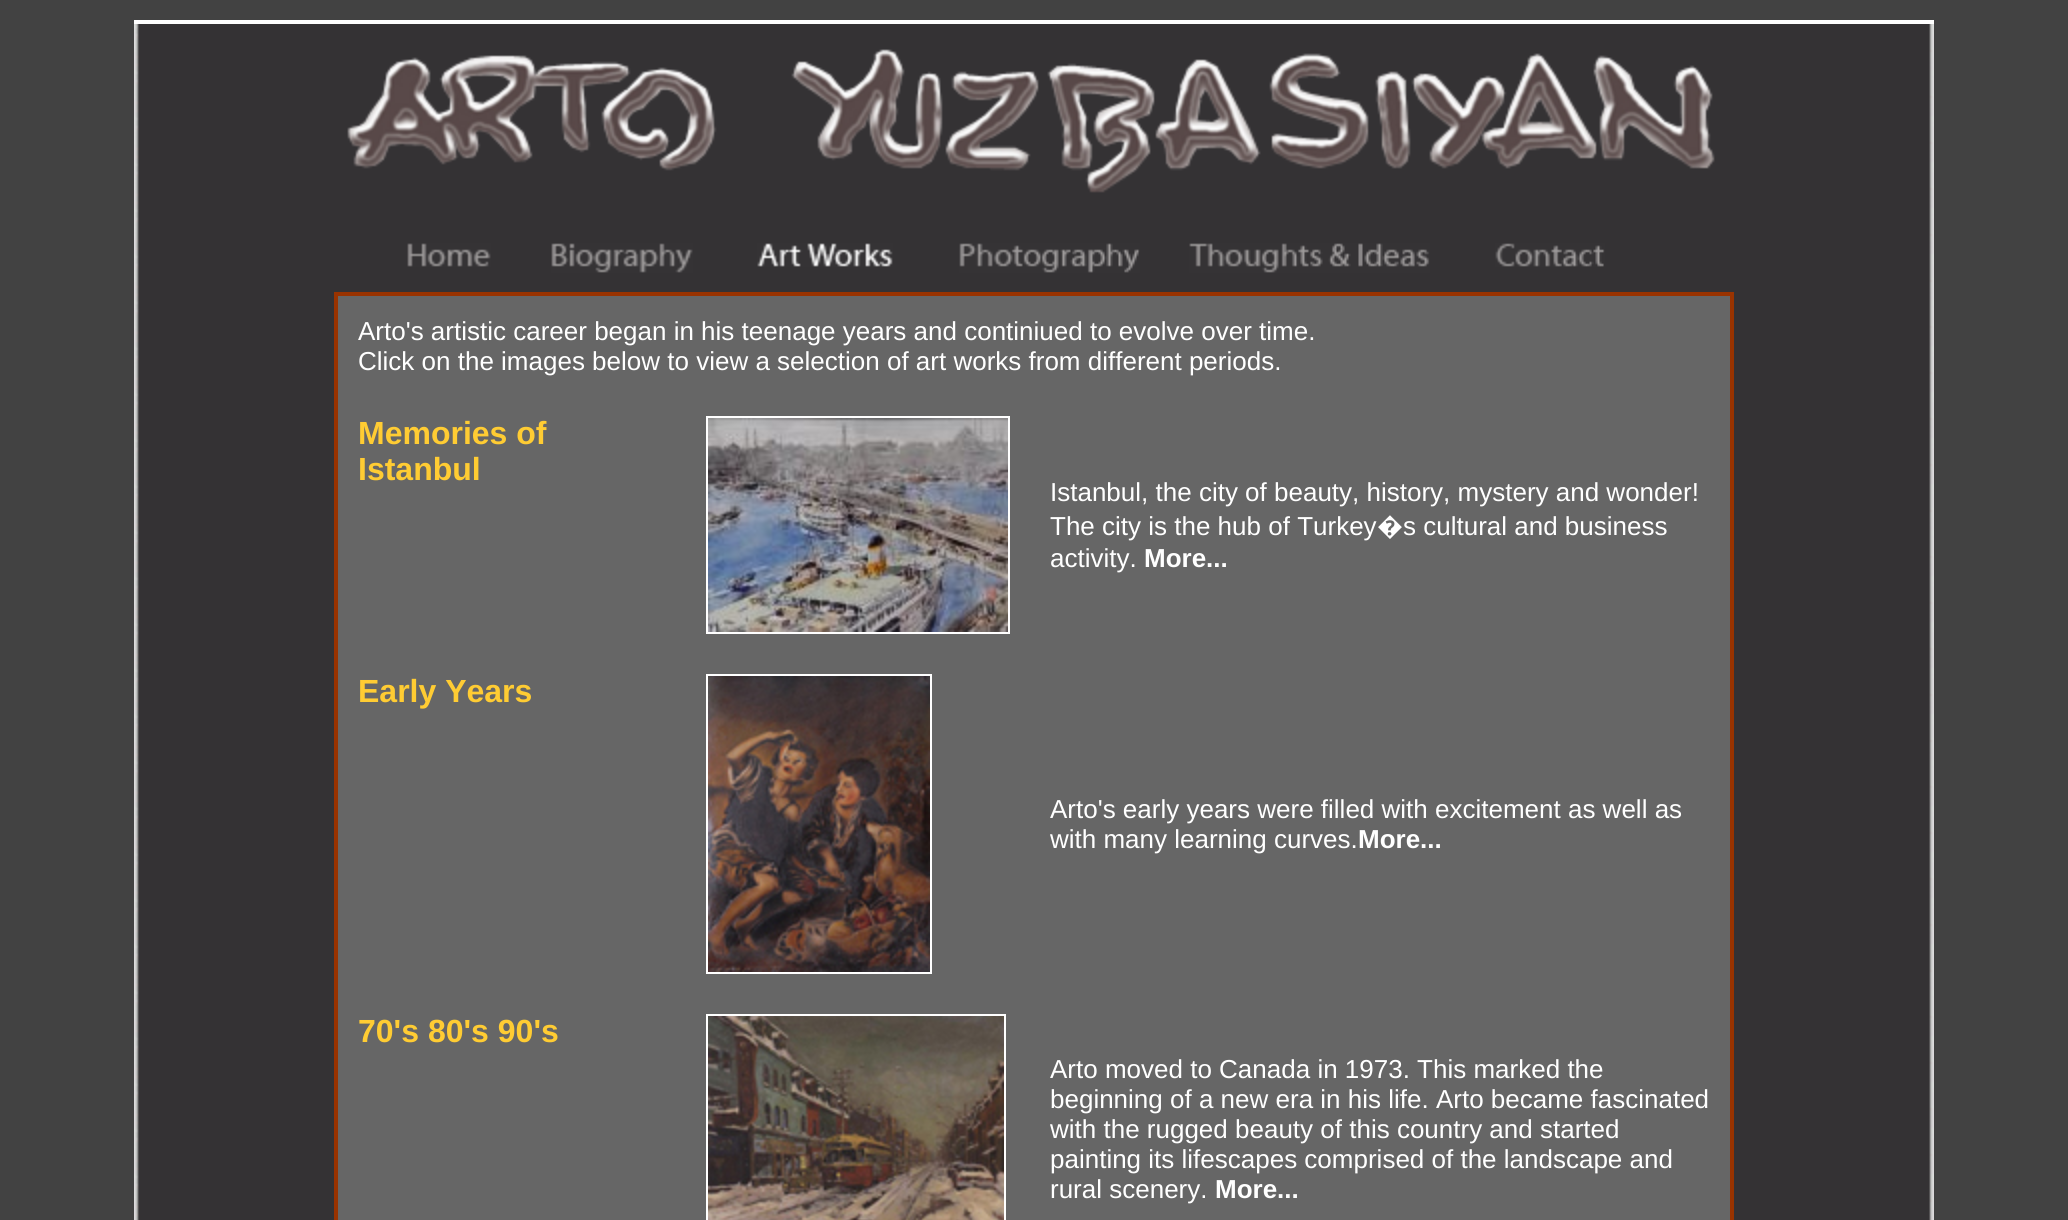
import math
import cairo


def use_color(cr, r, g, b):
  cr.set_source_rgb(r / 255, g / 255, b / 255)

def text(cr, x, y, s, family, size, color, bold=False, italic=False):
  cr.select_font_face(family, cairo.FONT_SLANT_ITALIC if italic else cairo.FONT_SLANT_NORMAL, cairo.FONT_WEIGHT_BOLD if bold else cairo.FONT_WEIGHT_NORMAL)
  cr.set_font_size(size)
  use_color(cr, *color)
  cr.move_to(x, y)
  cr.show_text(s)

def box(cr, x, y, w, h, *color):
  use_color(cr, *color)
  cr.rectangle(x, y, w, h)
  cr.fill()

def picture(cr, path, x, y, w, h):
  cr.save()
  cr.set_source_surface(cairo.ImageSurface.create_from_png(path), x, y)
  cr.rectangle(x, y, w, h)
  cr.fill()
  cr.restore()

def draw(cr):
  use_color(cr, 66, 66, 66)
  cr.paint()
  picture(cr, "img_01.png", 134, 24, 1800, 1196)
  box(cr, 134, 20, 1800, 4, 255, 255, 255)
  picture(cr, "img_02.png", 347, 49, 1368, 144)
  picture(cr, "img_03.png", 407, 243, 84, 24)
  picture(cr, "img_04.png", 551, 243, 142, 30)
  picture(cr, "img_05.png", 757, 243, 136, 24)
  picture(cr, "img_06.png", 959, 243, 181, 30)
  picture(cr, "img_07.png", 1189, 243, 241, 30)
  picture(cr, "img_08.png", 1495, 243, 110, 24)
  box(cr, 338, 296, 1392, 924, 102, 102, 102)
  cr.rectangle(335, 293, 1398, 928)
  use_color(cr, 153, 51, 0)
  cr.stroke()
  cr.rectangle(337, 295, 1394, 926)
  cr.stroke()
  cr.rectangle(707, 417, 302, 216)
  use_color(cr, 255, 255, 255)
  cr.stroke()
  picture(cr, "img_09.png", 708, 418, 300, 214)
  cr.rectangle(707, 675, 224, 298)
  cr.stroke()
  picture(cr, "img_10.png", 708, 676, 222, 296)
  cr.rectangle(707, 1015, 298, 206)
  cr.stroke()
  picture(cr, "img_11.png", 708, 1016, 296, 204)
  text(cr, 358, 340, "Arto's artistic career began in his teenage years and continiued to evolve over time.", "Liberation Sans", 26, (255, 255, 255))
  text(cr, 358, 370, "Click on the images below to view a selection of art works from different periods.", "Liberation Sans", 26, (255, 255, 255))
  text(cr, 358, 444, "Memories of", "Liberation Sans", 32, (255, 204, 51), bold=True)
  text(cr, 358, 480, "Istanbul", "Liberation Sans", 32, (255, 204, 51), bold=True)
  text(cr, 1050, 501, "Istanbul, the city of beauty, history, mystery and wonder!", "Liberation Sans", 26, (255, 255, 255))
  text(cr, 1050, 535, "The city is the hub of Turkey", "Liberation Sans", 26, (255, 255, 255))
  text(cr, 1377, 535, "�", "Noto Sans", 26, (255, 255, 255))
  text(cr, 1403, 535, "s cultural and business", "Liberation Sans", 26, (255, 255, 255))
  text(cr, 1050, 567, "activity.", "Liberation Sans", 26, (255, 255, 255))
  text(cr, 1144, 567, "More...", "Liberation Sans", 26, (255, 255, 255), bold=True)
  text(cr, 358, 702, "Early Years", "Liberation Sans", 32, (255, 204, 51), bold=True)
  text(cr, 1050, 818, "Arto's early years were filled with excitement as well as", "Liberation Sans", 26, (255, 255, 255))
  text(cr, 1050, 848, "with many learning curves.", "Liberation Sans", 26, (255, 255, 255))
  text(cr, 1358, 848, "More...", "Liberation Sans", 26, (255, 255, 255), bold=True)
  text(cr, 358, 1042, "70's 80's 90's", "Liberation Sans", 32, (255, 204, 51), bold=True)
  text(cr, 1050, 1078, "Arto moved to Canada in 1973. This marked the", "Liberation Sans", 26, (255, 255, 255))
  text(cr, 1050, 1108, "beginning of a new era in his life. Arto became fascinated", "Liberation Sans", 26, (255, 255, 255))
  text(cr, 1050, 1138, "with the rugged beauty of this country and started", "Liberation Sans", 26, (255, 255, 255))
  text(cr, 1050, 1168, "painting its lifescapes comprised of the landscape and", "Liberation Sans", 26, (255, 255, 255))
  text(cr, 1050, 1198, "rural scenery.", "Liberation Sans", 26, (255, 255, 255))
  text(cr, 1215, 1198, "More...", "Liberation Sans", 26, (255, 255, 255), bold=True)


surface = cairo.ImageSurface(cairo.FORMAT_RGB24, 2068, 1220)
cr = cairo.Context(surface)
options = cairo.FontOptions()
options.set_hint_metrics(cairo.HINT_METRICS_OFF)
options.set_hint_style(cairo.HINT_STYLE_NONE)
cr.set_font_options(options)
cr.set_miter_limit(4)
draw(cr)
surface.write_to_png("out.png")
